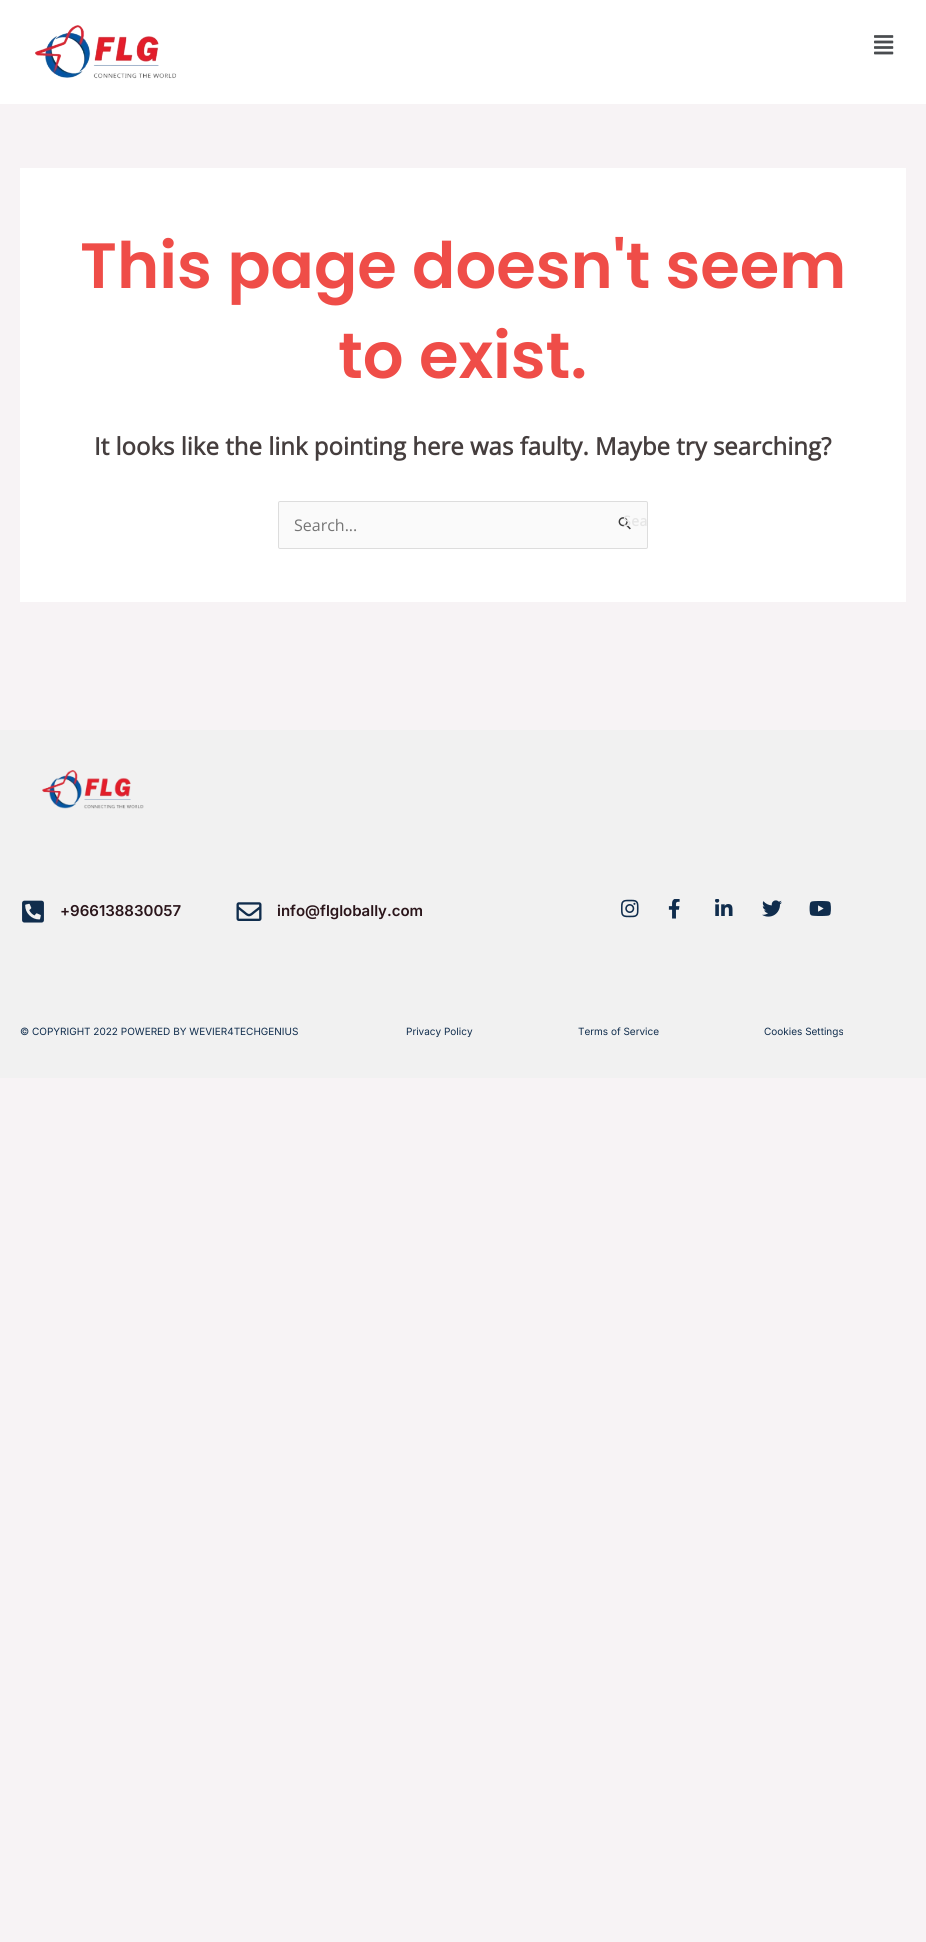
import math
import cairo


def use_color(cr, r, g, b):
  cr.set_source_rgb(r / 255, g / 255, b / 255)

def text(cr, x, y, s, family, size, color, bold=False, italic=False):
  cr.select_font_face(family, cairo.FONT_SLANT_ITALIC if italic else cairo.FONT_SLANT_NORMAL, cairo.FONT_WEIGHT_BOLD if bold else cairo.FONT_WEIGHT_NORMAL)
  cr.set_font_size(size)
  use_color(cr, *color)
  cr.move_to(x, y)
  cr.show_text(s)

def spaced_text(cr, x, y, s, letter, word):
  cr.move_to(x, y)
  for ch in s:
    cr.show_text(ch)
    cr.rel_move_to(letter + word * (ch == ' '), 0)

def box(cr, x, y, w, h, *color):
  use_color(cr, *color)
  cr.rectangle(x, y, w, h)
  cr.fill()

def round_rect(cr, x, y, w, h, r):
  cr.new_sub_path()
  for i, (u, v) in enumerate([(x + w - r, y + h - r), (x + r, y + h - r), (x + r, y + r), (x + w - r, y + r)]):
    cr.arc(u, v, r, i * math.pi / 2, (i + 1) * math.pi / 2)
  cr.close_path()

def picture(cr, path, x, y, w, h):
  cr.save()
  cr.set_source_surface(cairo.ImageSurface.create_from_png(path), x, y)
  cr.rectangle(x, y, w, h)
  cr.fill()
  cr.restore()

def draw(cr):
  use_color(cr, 247, 243, 245)
  cr.paint()
  box(cr, 0, 0, 926, 104, 255, 255, 255)
  picture(cr, "img_01.png", 35, 25, 142, 54)
  picture(cr, "img_02.png", 874, 35, 20, 20)
  box(cr, 20, 168, 886, 434, 255, 255, 255)
  use_color(cr, 250, 250, 250)
  round_rect(cr, 278.5, 501.5, 369, 47, 1.5)
  cr.fill_preserve()
  use_color(cr, 221, 221, 221)
  cr.set_line_width(1)
  cr.stroke()
  picture(cr, "img_03.png", 618, 517, 13, 13)
  box(cr, 0, 730, 926, 348, 241, 241, 241)
  picture(cr, "img_04.png", 42, 770, 102, 39)
  picture(cr, "img_05.png", 22, 900, 22, 23)
  picture(cr, "img_06.png", 236, 902, 26, 19)
  picture(cr, "img_07.png", 621, 899, 18, 19)
  picture(cr, "img_08.png", 668, 899, 12, 20)
  picture(cr, "img_09.png", 715, 899, 18, 17)
  picture(cr, "img_10.png", 762, 900, 20, 17)
  picture(cr, "img_11.png", 809, 901, 22, 15)
  text(cr, 80, 288, "This page doesn't seem", "Poppins SemiBold", 64, (239, 77, 72))
  text(cr, 338, 378, "to exist.", "Poppins SemiBold", 64, (239, 77, 72))
  text(cr, 94, 455, "It looks like the link pointing here was faulty. Maybe try searching?", "Open Sans", 24, (69, 62, 62), bold=True)
  text(cr, 294, 531, "Search...", "Open Sans", 16, (117, 117, 117))
  cr.select_font_face("Open Sans", cairo.FONT_SLANT_NORMAL, cairo.FONT_WEIGHT_BOLD)
  cr.set_font_size(14)
  use_color(cr, 230, 230, 230)
  spaced_text(cr, 623, 526, "Sea", 0.5, 0)
  text(cr, 60, 916, "+966138830057", "Inter SemiBold", 15, (43, 22, 27))
  text(cr, 277, 916, "info@flglobally.com", "Inter SemiBold", 15, (43, 22, 27))
  text(cr, 20, 1035, "© COPYRIGHT 2022 POWERED BY WEVIER4TECHGENIUS", "Inter", 10, (16, 45, 77))
  text(cr, 406, 1035, "Privacy Policy", "Inter", 10, (16, 45, 77))
  text(cr, 578, 1035, "Terms of Service", "Inter", 10, (16, 45, 77))
  text(cr, 764, 1035, "Cookies Settings", "Inter", 10, (16, 45, 77))


surface = cairo.ImageSurface(cairo.FORMAT_RGB24, 926, 1942)
cr = cairo.Context(surface)
options = cairo.FontOptions()
options.set_hint_metrics(cairo.HINT_METRICS_OFF)
options.set_hint_style(cairo.HINT_STYLE_NONE)
cr.set_font_options(options)
cr.set_miter_limit(4)
draw(cr)
surface.write_to_png("out.png")
